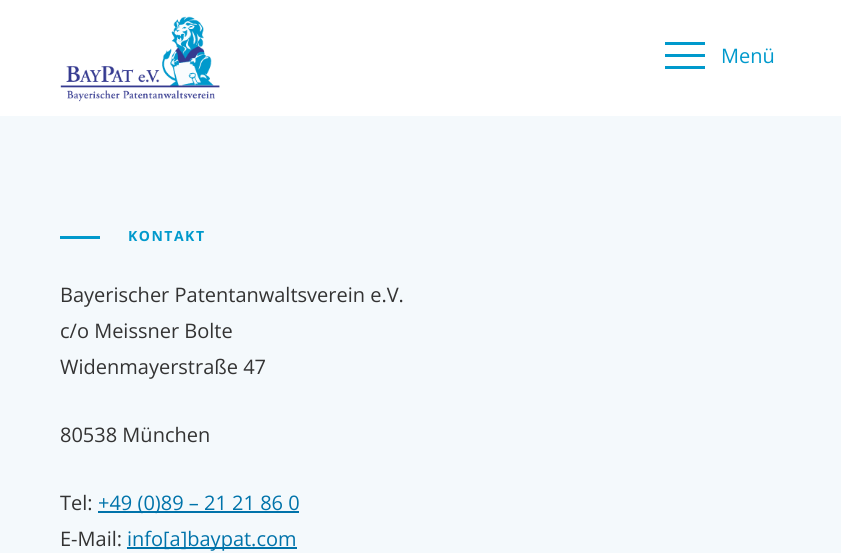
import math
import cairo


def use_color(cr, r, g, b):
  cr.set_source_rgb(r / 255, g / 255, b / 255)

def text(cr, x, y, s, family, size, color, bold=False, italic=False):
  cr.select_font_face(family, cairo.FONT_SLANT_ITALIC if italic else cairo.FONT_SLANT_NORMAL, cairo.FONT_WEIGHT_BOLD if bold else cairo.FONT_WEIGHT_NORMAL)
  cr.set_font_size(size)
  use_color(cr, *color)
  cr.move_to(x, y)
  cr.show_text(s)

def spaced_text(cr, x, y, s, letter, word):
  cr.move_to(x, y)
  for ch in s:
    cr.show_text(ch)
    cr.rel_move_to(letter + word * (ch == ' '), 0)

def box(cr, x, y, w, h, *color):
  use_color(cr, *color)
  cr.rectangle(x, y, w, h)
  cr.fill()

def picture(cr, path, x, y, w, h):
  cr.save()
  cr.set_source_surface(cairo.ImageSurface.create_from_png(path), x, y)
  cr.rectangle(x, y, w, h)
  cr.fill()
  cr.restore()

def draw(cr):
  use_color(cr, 244, 249, 252)
  cr.paint()
  box(cr, 0, 0, 841, 116, 255, 255, 255)
  picture(cr, "img_01.png", 60, 16, 160, 86)
  box(cr, 665, 42, 40, 3, 0, 153, 204)
  box(cr, 665, 54, 40, 3, 0, 153, 204)
  box(cr, 665, 66, 40, 3, 0, 153, 204)
  box(cr, 60, 236, 40, 3, 0, 153, 204)
  box(cr, 98, 511, 201, 2, 0, 115, 170)
  box(cr, 127, 547, 170, 2, 0, 115, 170)
  text(cr, 721, 63, "Menü", "Open Sans", 20, (0, 153, 204))
  cr.select_font_face("Open Sans", cairo.FONT_SLANT_NORMAL, cairo.FONT_WEIGHT_BOLD)
  cr.set_font_size(14)
  spaced_text(cr, 128, 241, "KONTAKT", 1.5, 0)
  text(cr, 60, 302, "Bayerischer Patentanwaltsverein e.V.", "Open Sans", 20, (51, 51, 51))
  text(cr, 60, 338, "c/o Meissner Bolte", "Open Sans", 20, (51, 51, 51))
  text(cr, 60, 374, "Widenmayerstraße 47", "Open Sans", 20, (51, 51, 51))
  text(cr, 60, 442, "80538 München", "Open Sans", 20, (51, 51, 51))
  text(cr, 60, 510, "Tel:", "Open Sans", 20, (51, 51, 51))
  text(cr, 98, 510, "+49 (0)89 – 21 21 86 0", "Open Sans", 20, (0, 115, 170))
  text(cr, 60, 546, "E-Mail:", "Open Sans", 20, (51, 51, 51))
  text(cr, 127, 546, "info[a]baypat.com", "Open Sans", 20, (0, 115, 170))


surface = cairo.ImageSurface(cairo.FORMAT_RGB24, 841, 553)
cr = cairo.Context(surface)
options = cairo.FontOptions()
options.set_hint_metrics(cairo.HINT_METRICS_OFF)
options.set_hint_style(cairo.HINT_STYLE_NONE)
cr.set_font_options(options)
cr.set_miter_limit(4)
draw(cr)
surface.write_to_png("out.png")
